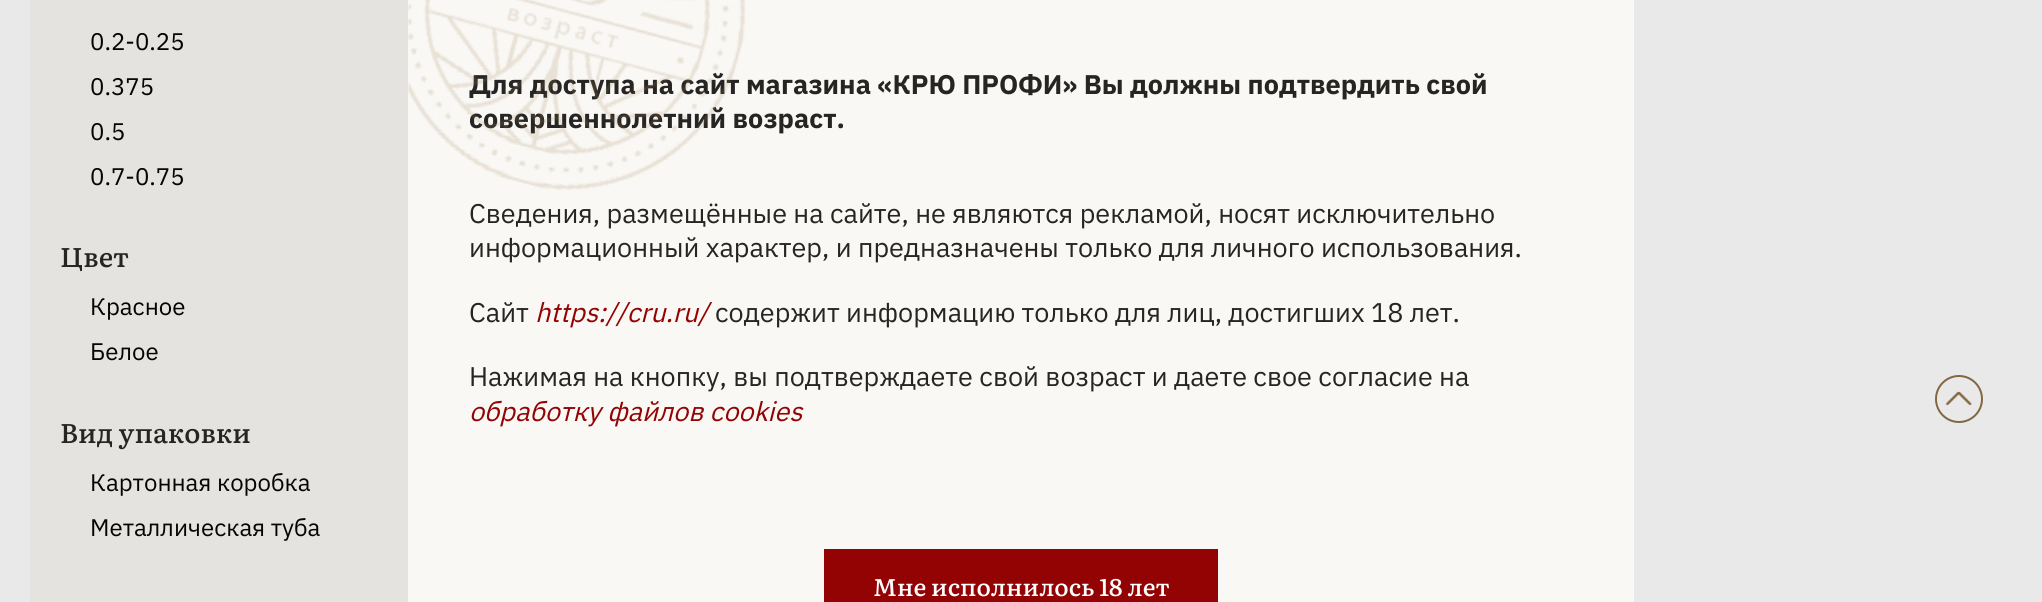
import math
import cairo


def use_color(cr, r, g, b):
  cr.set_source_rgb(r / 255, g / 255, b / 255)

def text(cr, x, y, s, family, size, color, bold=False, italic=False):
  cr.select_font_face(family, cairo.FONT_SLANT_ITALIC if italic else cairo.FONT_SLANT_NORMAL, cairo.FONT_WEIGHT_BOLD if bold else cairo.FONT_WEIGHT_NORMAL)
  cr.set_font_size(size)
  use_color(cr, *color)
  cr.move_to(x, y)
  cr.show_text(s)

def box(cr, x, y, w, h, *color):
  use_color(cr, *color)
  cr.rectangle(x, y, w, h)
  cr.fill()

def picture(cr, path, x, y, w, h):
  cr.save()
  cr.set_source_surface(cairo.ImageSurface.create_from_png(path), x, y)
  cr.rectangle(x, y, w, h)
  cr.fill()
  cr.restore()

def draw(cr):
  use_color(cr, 233, 233, 233)
  cr.paint()
  box(cr, 30, 0, 378, 602, 228, 227, 224)
  box(cr, 408, 0, 1226, 602, 249, 248, 245)
  box(cr, 824, 549, 394, 53, 147, 3, 3)
  cr.arc(1959, 399, 23, 0, 2 * math.pi)
  use_color(cr, 130, 103, 66)
  cr.stroke()
  picture(cr, "img_02.png", 1945, 391, 27, 15)
  text(cr, 90, 50, "0.2-0.25", "IBM Plex Sans", 24, (4, 4, 4))
  text(cr, 90, 95, "0.375", "IBM Plex Sans", 24, (4, 4, 4))
  text(cr, 90, 140, "0.5", "IBM Plex Sans", 24, (4, 4, 4))
  text(cr, 90, 185, "0.7-0.75", "IBM Plex Sans", 24, (4, 4, 4))
  text(cr, 60, 267, "Цвет", "Literata Medium", 27, (38, 37, 36))
  text(cr, 90, 315, "Красное", "IBM Plex Sans", 24, (4, 4, 4))
  text(cr, 90, 360, "Белое", "IBM Plex Sans", 24, (4, 4, 4))
  text(cr, 60, 443, "Вид упаковки", "Literata Medium", 27, (38, 37, 36))
  text(cr, 90, 491, "Картонная коробка", "IBM Plex Sans", 24, (4, 4, 4))
  text(cr, 90, 536, "Металлическая туба", "IBM Plex Sans", 24, (4, 4, 4))
  text(cr, 469, 94, "Для доступа на сайт магазина «КРЮ ПРОФИ» Вы должны подтвердить свой", "IBM Plex Sans", 27, (38, 37, 36), bold=True)
  text(cr, 469, 128, "совершеннолетний возраст.", "IBM Plex Sans", 27, (38, 37, 36), bold=True)
  picture(cr, "img_01.png", 408, 0, 338, 190)
  text(cr, 469, 223, "Сведения, размещённые на сайте, не являются рекламой, носят исключительно", "IBM Plex Sans", 27, (38, 37, 36))
  text(cr, 469, 257, "информационный характер, и предназначены только для личного использования.", "IBM Plex Sans", 27, (38, 37, 36))
  text(cr, 469, 322, "Сайт", "IBM Plex Sans", 27, (38, 37, 36))
  text(cr, 535, 322, "https://cru.ru/", "IBM Plex Sans", 27, (147, 3, 3), italic=True)
  text(cr, 715, 322, "содержит информацию только для лиц, достигших 18 лет.", "IBM Plex Sans", 27, (38, 37, 36))
  text(cr, 469, 386, "Нажимая на кнопку, вы подтверждаете свой возраст и даете свое согласие на", "IBM Plex Sans", 27, (38, 37, 36))
  text(cr, 469, 421, "обработку файлов cookies", "IBM Plex Sans", 27, (147, 3, 3), italic=True)
  text(cr, 873, 596, "Мне исполнилось 18 лет", "Literata Medium", 24, (255, 255, 255))


surface = cairo.ImageSurface(cairo.FORMAT_RGB24, 2042, 602)
cr = cairo.Context(surface)
options = cairo.FontOptions()
options.set_hint_metrics(cairo.HINT_METRICS_OFF)
options.set_hint_style(cairo.HINT_STYLE_NONE)
cr.set_font_options(options)
cr.set_miter_limit(4)
draw(cr)
surface.write_to_png("out.png")
